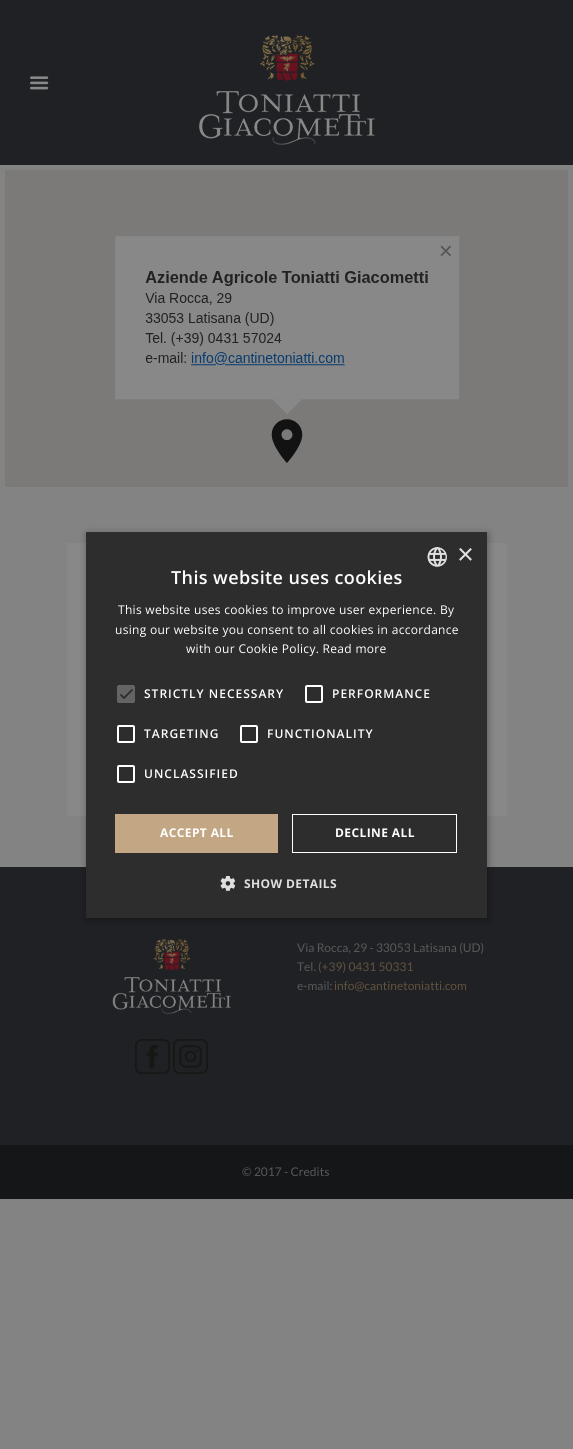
import math
import cairo


def use_color(cr, r, g, b):
  cr.set_source_rgb(r / 255, g / 255, b / 255)

def text(cr, x, y, s, family, size, color, bold=False, italic=False):
  cr.select_font_face(family, cairo.FONT_SLANT_ITALIC if italic else cairo.FONT_SLANT_NORMAL, cairo.FONT_WEIGHT_BOLD if bold else cairo.FONT_WEIGHT_NORMAL)
  cr.set_font_size(size)
  use_color(cr, *color)
  cr.move_to(x, y)
  cr.show_text(s)

def spaced_text(cr, x, y, s, letter, word):
  cr.move_to(x, y)
  for ch in s:
    cr.show_text(ch)
    cr.rel_move_to(letter + word * (ch == ' '), 0)

def box(cr, x, y, w, h, *color):
  use_color(cr, *color)
  cr.rectangle(x, y, w, h)
  cr.fill()

def round_rect(cr, x, y, w, h, r):
  cr.new_sub_path()
  for i, (u, v) in enumerate([(x + w - r, y + h - r), (x + r, y + h - r), (x + r, y + r), (x + w - r, y + r)]):
    cr.arc(u, v, r, i * math.pi / 2, (i + 1) * math.pi / 2)
  cr.close_path()

def shadow(cr, x, y, w, h, r, blur, alpha):
  cr.push_group_with_content(cairo.CONTENT_ALPHA)
  cr.set_operator(cairo.OPERATOR_SOURCE)
  for i in range(15, -16, -2):
    e = blur * i / 6
    if min(w, h) + 2 * e > 0:
      cr.set_source_rgba(0, 0, 0, alpha * math.erfc((i - 1) / 8.5) / 2)
      round_rect(cr, x - e, y - e, w + 2 * e, h + 2 * e, max(0, min(r + e + blur * .6, min(w, h) / 2 + e)))
      cr.fill()
  cr.mask(cr.pop_group())

def picture(cr, path, x, y, w, h):
  cr.save()
  cr.set_source_surface(cairo.ImageSurface.create_from_png(path), x, y)
  cr.rectangle(x, y, w, h)
  cr.fill()
  cr.restore()

def draw(cr):
  use_color(cr, 131, 131, 131)
  cr.paint()
  box(cr, 67, 543, 440, 273, 136, 136, 136)
  box(cr, 0, 867, 573, 278, 31, 33, 36)
  use_color(cr, 0, 0, 0)
  shadow(cr, 87, 534, 401, 386, 0, 4, 0.35)
  box(cr, 86, 532, 401, 386, 45, 45, 45)
  picture(cr, "img_01.png", 427, 547, 20, 20)
  use_color(cr, 100, 100, 100)
  round_rect(cr, 117, 685, 18, 18, 2)
  cr.fill()
  cr.new_path()
  cr.move_to(120.5, 694.5)
  cr.line_to(124, 698)
  cr.line_to(132.5, 689.5)
  use_color(cr, 45, 45, 45)
  cr.set_line_width(1.8)
  cr.stroke()
  round_rect(cr, 306, 686, 16, 16, 1)
  use_color(cr, 255, 255, 255)
  cr.set_line_width(2)
  cr.stroke()
  round_rect(cr, 118, 726, 16, 16, 1)
  cr.stroke()
  round_rect(cr, 241, 726, 16, 16, 1)
  cr.stroke()
  round_rect(cr, 118, 766, 16, 16, 1)
  cr.stroke()
  box(cr, 115, 814, 163, 39, 195, 167, 132)
  cr.rectangle(292.5, 814.5, 164, 38)
  use_color(cr, 255, 255, 255)
  cr.set_line_width(1)
  cr.stroke()
  picture(cr, "img_02.png", 220, 876, 15, 15)
  box(cr, 0, 0, 573, 165, 31, 33, 36)
  picture(cr, "img_03.png", 30, 76, 19, 14)
  picture(cr, "img_04.png", 199, 35, 176, 110)
  picture(cr, "img_05.png", 5, 170, 563, 317)
  picture(cr, "img_06.png", 112, 939, 119, 75)
  picture(cr, "img_07.png", 135, 1039, 35, 35)
  picture(cr, "img_08.png", 173, 1039, 35, 35)
  box(cr, 0, 1145, 573, 54, 20, 22, 23)
  text(cr, 457, 564, "×", "Liberation Sans", 29, (224, 224, 224))
  cr.select_font_face("Open Sans SemiBold")
  cr.set_font_size(18)
  use_color(cr, 255, 255, 255)
  spaced_text(cr, 171, 584, "This website uses cookies", 0.4, 0)
  cr.select_font_face("Open Sans")
  cr.set_font_size(12)
  spaced_text(cr, 118, 614, "This website uses cookies to improve user experience. By", 0.3, 0)
  spaced_text(cr, 115, 634, "using our website you consent to all cookies in accordance", 0.3, 0)
  spaced_text(cr, 186, 653, "with our Cookie Policy. Read more", 0.3, 0)
  cr.select_font_face("Open Sans SemiBold")
  spaced_text(cr, 144, 698, "STRICTLY NECESSARY", 1, 0)
  spaced_text(cr, 332, 698, "PERFORMANCE", 1, 0)
  spaced_text(cr, 144, 738, "TARGETING", 1, 0)
  spaced_text(cr, 267, 738, "FUNCTIONALITY", 1, 0)
  spaced_text(cr, 144, 778, "UNCLASSIFIED", 1, 0)
  cr.select_font_face("Open Sans", cairo.FONT_SLANT_NORMAL, cairo.FONT_WEIGHT_BOLD)
  spaced_text(cr, 160, 837, "ACCEPT ALL", 0.4, 0)
  spaced_text(cr, 335, 837, "DECLINE ALL", 0.4, 0)
  use_color(cr, 224, 224, 224)
  spaced_text(cr, 244, 888, "SHOW DETAILS", 0.4, 0)
  text(cr, 297, 952, "Via Rocca, 29 - 33053 Latisana (UD)", "Lato", 12, (87, 88, 89))
  text(cr, 297, 971, "Tel.", "Lato", 12, (87, 88, 89))
  text(cr, 318, 971, "(+39) 0431 50331", "Lato", 12, (98, 82, 63))
  text(cr, 297, 990, "e-mail:", "Lato", 12, (87, 88, 89))
  text(cr, 334, 990, "info@cantinetoniatti.com", "Lato", 12, (98, 82, 63))
  text(cr, 242, 1176, "© 2017 - Credits", "Lato", 12, (87, 88, 89))


surface = cairo.ImageSurface(cairo.FORMAT_RGB24, 573, 1449)
cr = cairo.Context(surface)
options = cairo.FontOptions()
options.set_hint_metrics(cairo.HINT_METRICS_OFF)
options.set_hint_style(cairo.HINT_STYLE_NONE)
cr.set_font_options(options)
cr.set_miter_limit(4)
draw(cr)
surface.write_to_png("out.png")
